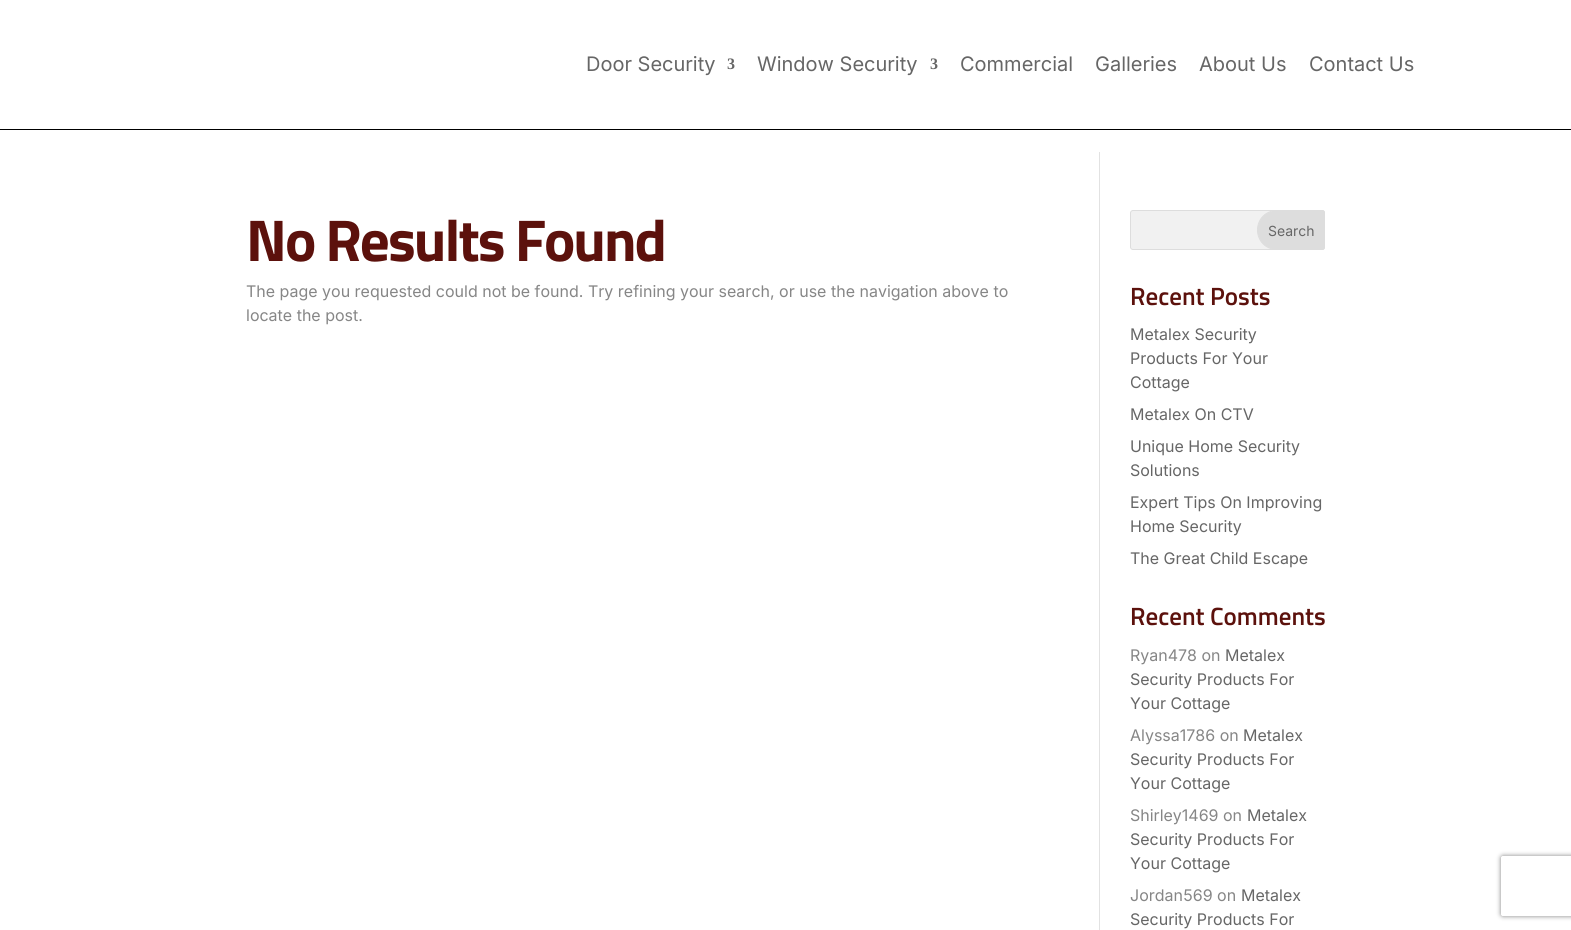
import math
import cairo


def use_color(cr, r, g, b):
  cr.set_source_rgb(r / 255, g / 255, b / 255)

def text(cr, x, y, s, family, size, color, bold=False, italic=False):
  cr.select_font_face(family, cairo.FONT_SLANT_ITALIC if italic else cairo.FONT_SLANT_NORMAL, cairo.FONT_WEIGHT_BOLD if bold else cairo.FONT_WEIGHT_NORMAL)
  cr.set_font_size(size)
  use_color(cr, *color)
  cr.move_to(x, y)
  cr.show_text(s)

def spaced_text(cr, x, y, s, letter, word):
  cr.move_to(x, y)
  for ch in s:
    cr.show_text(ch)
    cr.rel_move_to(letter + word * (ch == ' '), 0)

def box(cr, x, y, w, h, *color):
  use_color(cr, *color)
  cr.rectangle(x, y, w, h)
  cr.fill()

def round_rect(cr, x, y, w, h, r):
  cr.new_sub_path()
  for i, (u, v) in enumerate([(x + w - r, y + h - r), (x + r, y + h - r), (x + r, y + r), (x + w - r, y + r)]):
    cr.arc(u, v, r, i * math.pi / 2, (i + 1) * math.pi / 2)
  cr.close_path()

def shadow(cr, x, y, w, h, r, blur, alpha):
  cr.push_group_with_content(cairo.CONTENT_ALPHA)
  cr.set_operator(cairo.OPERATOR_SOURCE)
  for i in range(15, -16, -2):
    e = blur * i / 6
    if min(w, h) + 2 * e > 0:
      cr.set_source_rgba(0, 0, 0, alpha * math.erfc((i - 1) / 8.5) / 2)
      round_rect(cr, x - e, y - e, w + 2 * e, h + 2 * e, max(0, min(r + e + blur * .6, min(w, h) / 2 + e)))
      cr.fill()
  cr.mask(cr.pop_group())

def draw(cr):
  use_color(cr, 255, 255, 255)
  cr.paint()
  box(cr, 0, 129, 1571, 1, 0, 0, 0)
  box(cr, 1099, 152, 1, 778, 226, 226, 226)
  use_color(cr, 241, 241, 241)
  round_rect(cr, 1130.5, 210.5, 194, 39, 2.5)
  cr.fill_preserve()
  use_color(cr, 221, 221, 221)
  cr.set_line_width(1)
  cr.stroke()
  cr.new_path()
  cr.move_to(1277, 210.5)
  cr.line_to(1322.5, 210.5)
  cr.curve_to(1323.5, 210.5, 1324.5, 211.5, 1324.5, 212.5)
  cr.line_to(1324.5, 247.5)
  cr.curve_to(1324.5, 248.5, 1323.5, 249.5, 1322.5, 249.5)
  cr.line_to(1277, 249.5)
  cr.curve_to(1266, 249.5, 1257.5, 241, 1257.5, 230)
  cr.curve_to(1257.5, 219, 1266, 210.5, 1277, 210.5)
  cr.close_path()
  cr.fill_preserve()
  cr.stroke()
  cr.save()
  cr.set_fill_rule(cairo.FILL_RULE_EVEN_ODD)
  cr.new_path()
  cr.move_to(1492, 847)
  cr.line_to(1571, 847)
  cr.line_to(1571, 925)
  cr.line_to(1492, 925)
  cr.close_path()
  cr.move_to(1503, 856)
  cr.line_to(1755, 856)
  cr.curve_to(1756, 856, 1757, 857, 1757, 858)
  cr.line_to(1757, 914)
  cr.curve_to(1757, 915, 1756, 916, 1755, 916)
  cr.line_to(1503, 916)
  cr.curve_to(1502, 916, 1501, 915, 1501, 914)
  cr.line_to(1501, 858)
  cr.curve_to(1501, 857, 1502, 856, 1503, 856)
  cr.close_path()
  cr.clip()
  use_color(cr, 128, 128, 128)
  shadow(cr, 1501, 856, 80, 60, 2, 2.5, 1)
  cr.restore()
  text(cr, 586, 71, "Door Security", "Inter", 20, (102, 102, 102))
  text(cr, 727, 69, "3", "Liberation Serif", 16, (102, 102, 102), bold=True)
  text(cr, 757, 71, "Window Security", "Inter", 20, (102, 102, 102))
  text(cr, 930, 69, "3", "Liberation Serif", 16, (102, 102, 102), bold=True)
  text(cr, 960, 71, "Commercial", "Inter", 20, (102, 102, 102))
  text(cr, 1095, 71, "Galleries", "Inter", 20, (102, 102, 102))
  text(cr, 1199, 71, "About Us", "Inter", 20, (102, 102, 102))
  text(cr, 1309, 71, "Contact Us", "Inter", 20, (102, 102, 102))
  cr.select_font_face("Titillium Web", cairo.FONT_SLANT_NORMAL, cairo.FONT_WEIGHT_BOLD)
  cr.set_font_size(59)
  use_color(cr, 92, 17, 12)
  spaced_text(cr, 246, 261, "No Results Found", -2, 0)
  text(cr, 246, 297, "The page you requested could not be found. Try refining your search, or use the navigation above to", "Inter", 16, (134, 134, 134))
  text(cr, 246, 321, "locate the post.", "Inter", 16, (134, 134, 134))
  text(cr, 1268, 236, "Search", "Inter", 14, (102, 102, 102))
  text(cr, 1130, 305, "Recent Posts", "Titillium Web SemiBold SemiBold", 25, (92, 17, 12))
  text(cr, 1130, 340, "Metalex Security", "Inter", 16, (102, 102, 102))
  text(cr, 1130, 364, "Products For Your", "Inter", 16, (102, 102, 102))
  text(cr, 1130, 388, "Cottage", "Inter", 16, (102, 102, 102))
  text(cr, 1130, 420, "Metalex On CTV", "Inter", 16, (102, 102, 102))
  text(cr, 1130, 452, "Unique Home Security", "Inter", 16, (102, 102, 102))
  text(cr, 1130, 476, "Solutions", "Inter", 16, (102, 102, 102))
  text(cr, 1130, 508, "Expert Tips On Improving", "Inter", 16, (102, 102, 102))
  text(cr, 1130, 532, "Home Security", "Inter", 16, (102, 102, 102))
  text(cr, 1130, 564, "The Great Child Escape", "Inter", 16, (102, 102, 102))
  text(cr, 1130, 625, "Recent Comments", "Titillium Web SemiBold SemiBold", 25, (92, 17, 12))
  text(cr, 1130, 661, "Ryan478 on", "Inter", 16, (134, 134, 134))
  text(cr, 1225, 661, "Metalex", "Inter", 16, (102, 102, 102))
  text(cr, 1130, 685, "Security Products For", "Inter", 16, (102, 102, 102))
  text(cr, 1130, 709, "Your Cottage", "Inter", 16, (102, 102, 102))
  text(cr, 1130, 741, "Alyssa1786 on", "Inter", 16, (134, 134, 134))
  text(cr, 1243, 741, "Metalex", "Inter", 16, (102, 102, 102))
  text(cr, 1130, 765, "Security Products For", "Inter", 16, (102, 102, 102))
  text(cr, 1130, 789, "Your Cottage", "Inter", 16, (102, 102, 102))
  text(cr, 1130, 821, "Shirley1469 on", "Inter", 16, (134, 134, 134))
  text(cr, 1247, 821, "Metalex", "Inter", 16, (102, 102, 102))
  text(cr, 1130, 845, "Security Products For", "Inter", 16, (102, 102, 102))
  text(cr, 1130, 869, "Your Cottage", "Inter", 16, (102, 102, 102))
  text(cr, 1130, 901, "Jordan569 on", "Inter", 16, (134, 134, 134))
  text(cr, 1241, 901, "Metalex", "Inter", 16, (102, 102, 102))
  text(cr, 1130, 925, "Security Products For", "Inter", 16, (102, 102, 102))


surface = cairo.ImageSurface(cairo.FORMAT_RGB24, 1571, 930)
cr = cairo.Context(surface)
options = cairo.FontOptions()
options.set_hint_metrics(cairo.HINT_METRICS_OFF)
options.set_hint_style(cairo.HINT_STYLE_NONE)
cr.set_font_options(options)
cr.set_miter_limit(4)
draw(cr)
surface.write_to_png("out.png")
